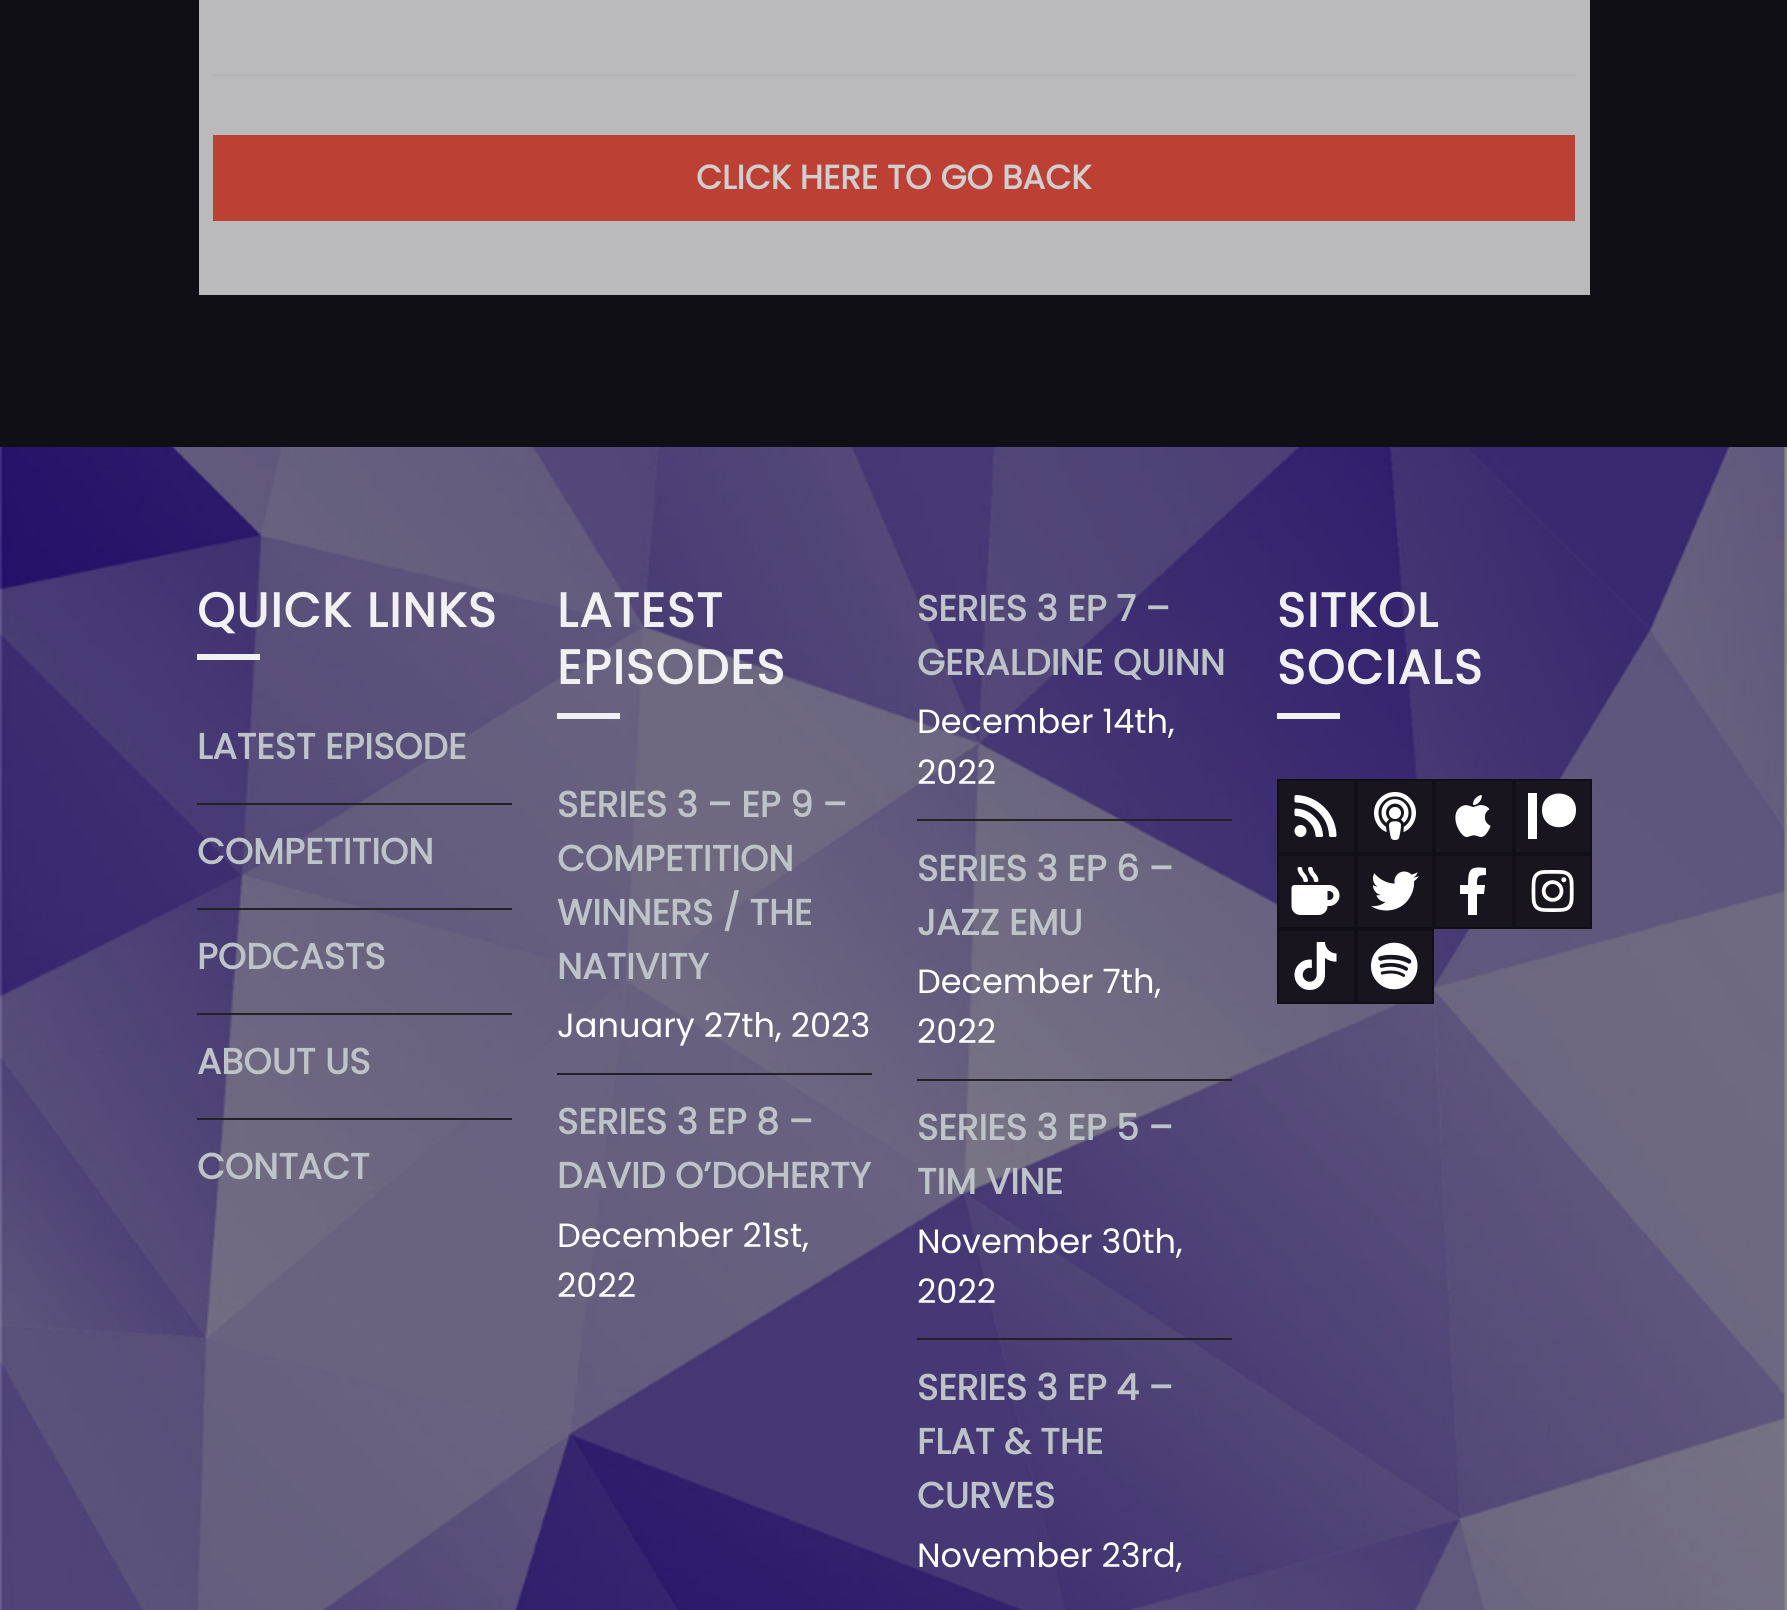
import math
import cairo


def use_color(cr, r, g, b):
  cr.set_source_rgb(r / 255, g / 255, b / 255)

def text(cr, x, y, s, family, size, color, bold=False, italic=False):
  cr.select_font_face(family, cairo.FONT_SLANT_ITALIC if italic else cairo.FONT_SLANT_NORMAL, cairo.FONT_WEIGHT_BOLD if bold else cairo.FONT_WEIGHT_NORMAL)
  cr.set_font_size(size)
  use_color(cr, *color)
  cr.move_to(x, y)
  cr.show_text(s)

def spaced_text(cr, x, y, s, letter, word):
  cr.move_to(x, y)
  for ch in s:
    cr.show_text(ch)
    cr.rel_move_to(letter + word * (ch == ' '), 0)

def box(cr, x, y, w, h, *color):
  use_color(cr, *color)
  cr.rectangle(x, y, w, h)
  cr.fill()

def picture(cr, path, x, y, w, h):
  cr.save()
  cr.set_source_surface(cairo.ImageSurface.create_from_png(path), x, y)
  cr.rectangle(x, y, w, h)
  cr.fill()
  cr.restore()

def draw(cr):
  use_color(cr, 17, 15, 22)
  cr.paint()
  box(cr, 199, 0, 1391, 295, 186, 185, 187)
  box(cr, 213, 74, 1362, 2, 180, 180, 181)
  box(cr, 213, 135, 1362, 86, 188, 64, 52)
  picture(cr, "img_01.png", 0, 447, 1787, 1163)
  box(cr, 197, 654, 63, 6, 241, 241, 241)
  box(cr, 197, 803, 315, 2, 34, 34, 34)
  box(cr, 197, 908, 315, 2, 34, 34, 34)
  box(cr, 197, 1013, 315, 2, 34, 34, 34)
  box(cr, 197, 1118, 315, 2, 34, 34, 34)
  box(cr, 557, 713, 63, 6, 241, 241, 241)
  box(cr, 557, 1073, 315, 2, 34, 34, 34)
  box(cr, 917, 819, 315, 2, 34, 34, 34)
  box(cr, 917, 1079, 315, 2, 34, 34, 34)
  box(cr, 917, 1338, 315, 2, 34, 34, 34)
  box(cr, 1277, 713, 63, 6, 241, 241, 241)
  use_color(cr, 24, 21, 31)
  cr.rectangle(1278, 780, 77, 73)
  cr.fill_preserve()
  use_color(cr, 17, 15, 22)
  cr.stroke()
  picture(cr, "img_02.png", 1294, 795, 43, 42)
  use_color(cr, 24, 21, 31)
  cr.rectangle(1357, 780, 76, 73)
  cr.fill_preserve()
  use_color(cr, 17, 15, 22)
  cr.stroke()
  picture(cr, "img_03.png", 1374, 792, 42, 48)
  use_color(cr, 24, 21, 31)
  cr.rectangle(1435, 780, 78, 73)
  cr.fill_preserve()
  use_color(cr, 17, 15, 22)
  cr.stroke()
  picture(cr, "img_04.png", 1455, 795, 36, 42)
  use_color(cr, 24, 21, 31)
  cr.rectangle(1515, 780, 76, 73)
  cr.fill_preserve()
  use_color(cr, 17, 15, 22)
  cr.stroke()
  use_color(cr, 255, 255, 255)
  cr.new_path()
  cr.move_to(1576, 810)
  cr.curve_to(1576, 833, 1542, 833, 1542, 810)
  cr.curve_to(1542, 788, 1576, 788, 1576, 810)
  cr.close_path()
  cr.move_to(1528, 839)
  cr.line_to(1528, 793)
  cr.line_to(1537, 793)
  cr.line_to(1537, 839)
  cr.close_path()
  cr.fill()
  use_color(cr, 24, 21, 31)
  cr.rectangle(1278, 855, 77, 73)
  cr.fill_preserve()
  use_color(cr, 17, 15, 22)
  cr.stroke()
  picture(cr, "img_05.png", 1291, 867, 49, 48)
  use_color(cr, 24, 21, 31)
  cr.rectangle(1357, 855, 76, 73)
  cr.fill_preserve()
  use_color(cr, 17, 15, 22)
  cr.stroke()
  picture(cr, "img_06.png", 1371, 871, 48, 40)
  use_color(cr, 24, 21, 31)
  cr.rectangle(1435, 855, 78, 73)
  cr.fill_preserve()
  use_color(cr, 17, 15, 22)
  cr.stroke()
  use_color(cr, 255, 255, 255)
  cr.new_path()
  cr.move_to(1484, 894)
  cr.line_to(1477, 894)
  cr.line_to(1477, 915)
  cr.line_to(1468, 915)
  cr.line_to(1468, 894)
  cr.line_to(1460, 894)
  cr.line_to(1460, 885)
  cr.line_to(1468, 885)
  cr.curve_to(1468, 869, 1470, 866, 1486, 868)
  cr.line_to(1486, 875)
  cr.curve_to(1477, 875, 1477, 877, 1477, 885)
  cr.line_to(1485, 885)
  cr.close_path()
  cr.fill()
  use_color(cr, 24, 21, 31)
  cr.rectangle(1515, 855, 76, 73)
  cr.fill_preserve()
  use_color(cr, 17, 15, 22)
  cr.stroke()
  picture(cr, "img_07.png", 1531, 870, 43, 42)
  use_color(cr, 24, 21, 31)
  cr.rectangle(1278, 930, 77, 73)
  cr.fill_preserve()
  use_color(cr, 17, 15, 22)
  cr.stroke()
  picture(cr, "img_08.png", 1294, 942, 43, 48)
  use_color(cr, 24, 21, 31)
  cr.rectangle(1357, 930, 76, 73)
  cr.fill_preserve()
  use_color(cr, 17, 15, 22)
  cr.stroke()
  picture(cr, "img_09.png", 1371, 942, 47, 48)
  text(cr, 696, 189, "CLICK HERE TO GO BACK", "Poppins", 33.6, (207, 207, 208), bold=True)
  cr.set_font_size(48)
  use_color(cr, 241, 241, 241)
  spaced_text(cr, 197, 627, "QUICK LINKS", 1.5, 0)
  text(cr, 197, 759, "LATEST EPISODE", "Poppins", 36, (189, 195, 199), bold=True)
  text(cr, 197, 864, "COMPETITION", "Poppins", 36, (189, 195, 199), bold=True)
  text(cr, 197, 969, "PODCASTS", "Poppins", 36, (189, 195, 199), bold=True)
  text(cr, 197, 1074, "ABOUT US", "Poppins", 36, (189, 195, 199), bold=True)
  text(cr, 197, 1179, "CONTACT", "Poppins", 36, (189, 195, 199), bold=True)
  cr.set_font_size(48)
  use_color(cr, 241, 241, 241)
  spaced_text(cr, 557, 627, "LATEST", 1.5, 0)
  spaced_text(cr, 557, 684, "EPISODES", 1.5, 0)
  text(cr, 557, 817, "SERIES 3 – EP 9 –", "Poppins", 36, (189, 195, 199), bold=True)
  text(cr, 557, 871, "COMPETITION", "Poppins", 36, (189, 195, 199), bold=True)
  text(cr, 557, 925, "WINNERS / THE", "Poppins", 36, (189, 195, 199), bold=True)
  text(cr, 557, 979, "NATIVITY", "Poppins", 36, (189, 195, 199), bold=True)
  text(cr, 557, 1037, "January 27th, 2023", "Poppins", 33.6, (255, 255, 255))
  text(cr, 557, 1134, "SERIES 3 EP 8 –", "Poppins", 36, (189, 195, 199), bold=True)
  text(cr, 557, 1188, "DAVID O’DOHERTY", "Poppins", 36, (189, 195, 199), bold=True)
  text(cr, 557, 1247, "December 21st,", "Poppins", 33.6, (255, 255, 255))
  text(cr, 557, 1297, "2022", "Poppins", 33.6, (255, 255, 255))
  text(cr, 917, 621, "SERIES 3 EP 7 –", "Poppins", 36, (189, 195, 199), bold=True)
  text(cr, 917, 675, "GERALDINE QUINN", "Poppins", 36, (189, 195, 199), bold=True)
  text(cr, 917, 733, "December 14th,", "Poppins", 33.6, (255, 255, 255))
  text(cr, 917, 784, "2022", "Poppins", 33.6, (255, 255, 255))
  text(cr, 917, 881, "SERIES 3 EP 6 –", "Poppins", 36, (189, 195, 199), bold=True)
  text(cr, 917, 935, "JAZZ EMU", "Poppins", 36, (189, 195, 199), bold=True)
  text(cr, 917, 993, "December 7th,", "Poppins", 33.6, (255, 255, 255))
  text(cr, 917, 1043, "2022", "Poppins", 33.6, (255, 255, 255))
  text(cr, 917, 1140, "SERIES 3 EP 5 –", "Poppins", 36, (189, 195, 199), bold=True)
  text(cr, 917, 1194, "TIM VINE", "Poppins", 36, (189, 195, 199), bold=True)
  text(cr, 917, 1253, "November 30th,", "Poppins", 33.6, (255, 255, 255))
  text(cr, 917, 1303, "2022", "Poppins", 33.6, (255, 255, 255))
  text(cr, 917, 1400, "SERIES 3 EP 4 –", "Poppins", 36, (189, 195, 199), bold=True)
  text(cr, 917, 1454, "FLAT & THE", "Poppins", 36, (189, 195, 199), bold=True)
  text(cr, 917, 1508, "CURVES", "Poppins", 36, (189, 195, 199), bold=True)
  text(cr, 917, 1567, "November 23rd,", "Poppins", 33.6, (255, 255, 255))
  cr.select_font_face("Poppins", cairo.FONT_SLANT_NORMAL, cairo.FONT_WEIGHT_BOLD)
  cr.set_font_size(48)
  use_color(cr, 241, 241, 241)
  spaced_text(cr, 1277, 627, "SITKOL", 1.5, 0)
  spaced_text(cr, 1277, 684, "SOCIALS", 1.5, 0)


surface = cairo.ImageSurface(cairo.FORMAT_RGB24, 1787, 1610)
cr = cairo.Context(surface)
options = cairo.FontOptions()
options.set_hint_metrics(cairo.HINT_METRICS_OFF)
options.set_hint_style(cairo.HINT_STYLE_NONE)
cr.set_font_options(options)
cr.set_miter_limit(4)
draw(cr)
surface.write_to_png("out.png")
